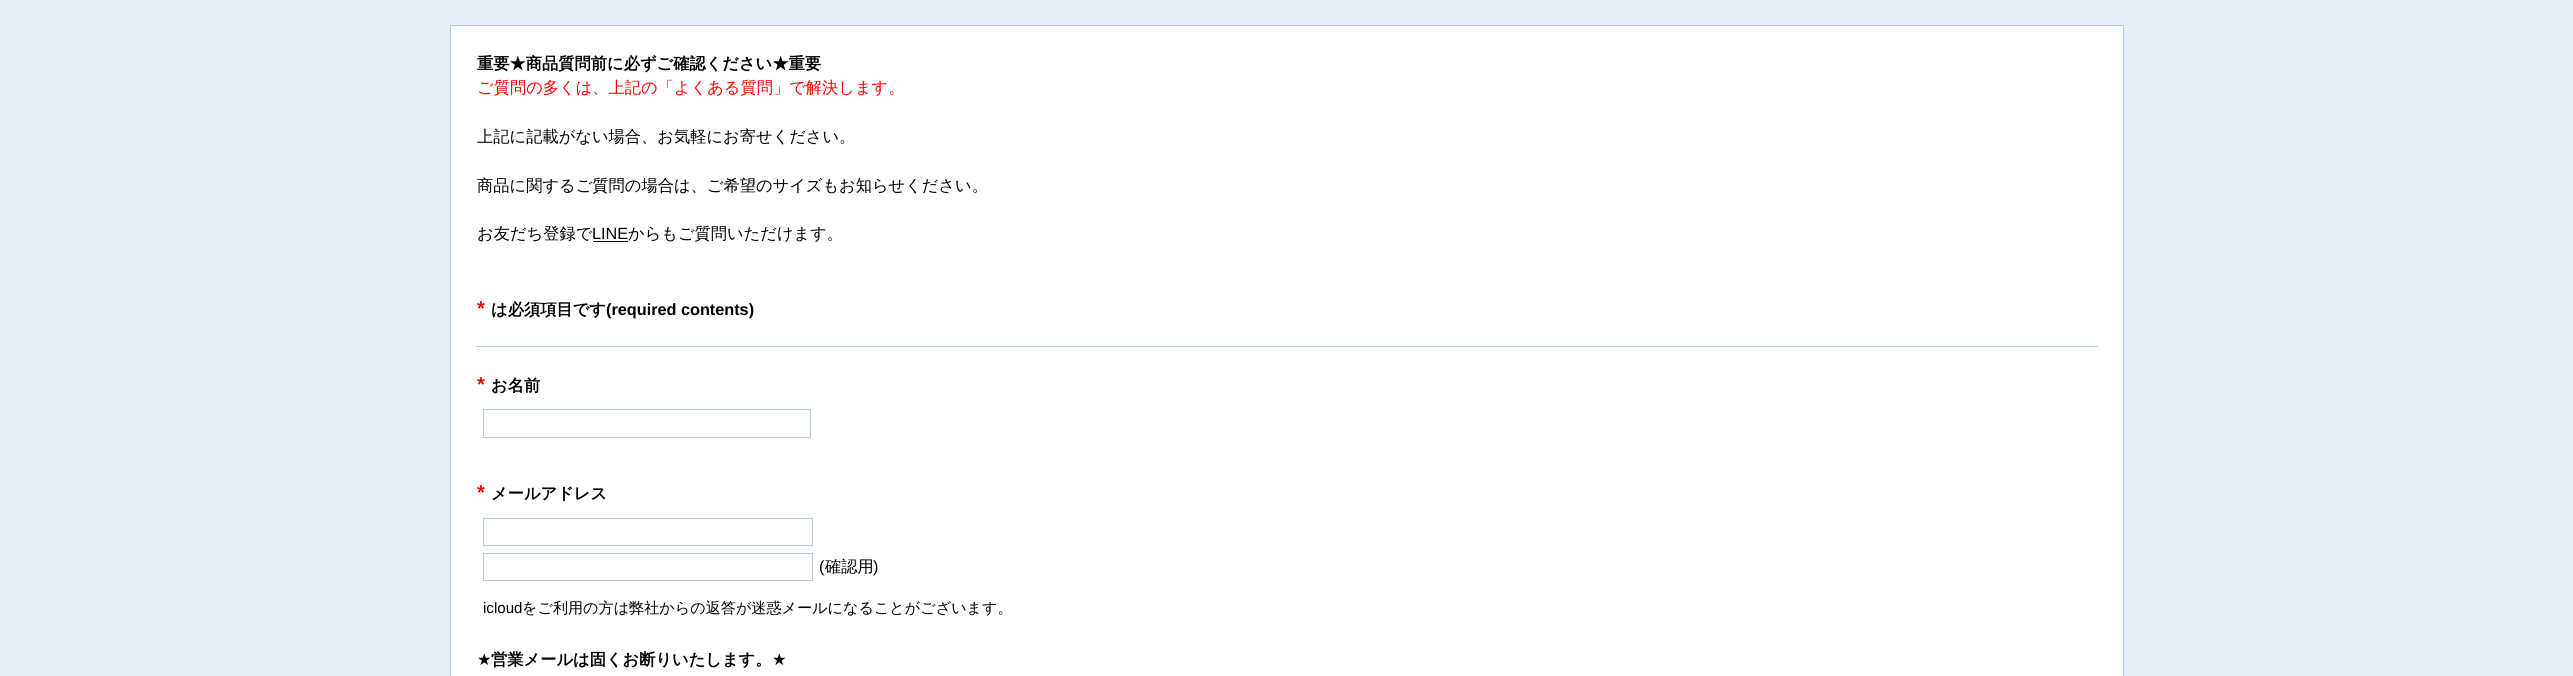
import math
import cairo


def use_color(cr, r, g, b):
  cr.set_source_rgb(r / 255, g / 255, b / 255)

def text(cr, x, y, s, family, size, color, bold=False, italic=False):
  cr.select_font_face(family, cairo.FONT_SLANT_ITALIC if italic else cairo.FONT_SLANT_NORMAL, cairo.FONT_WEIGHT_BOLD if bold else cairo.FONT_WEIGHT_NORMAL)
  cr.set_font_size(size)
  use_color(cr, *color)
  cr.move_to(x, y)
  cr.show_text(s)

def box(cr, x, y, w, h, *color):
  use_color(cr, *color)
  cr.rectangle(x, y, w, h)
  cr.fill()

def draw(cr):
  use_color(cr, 229, 238, 244)
  cr.paint()
  use_color(cr, 255, 255, 255)
  cr.rectangle(450.5, 25.5, 1673, 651)
  cr.fill_preserve()
  use_color(cr, 177, 205, 219)
  cr.set_line_width(1)
  cr.stroke()
  box(cr, 593, 241, 35, 1, 0, 0, 0)
  box(cr, 476, 346, 1622, 1, 177, 205, 219)
  cr.rectangle(483.5, 409.5, 327, 28)
  cr.stroke()
  cr.rectangle(483.5, 518.5, 329, 27)
  cr.stroke()
  cr.rectangle(483.5, 553.5, 329, 27)
  cr.stroke()
  text(cr, 477, 69, "重要★商品質問前に必ずご確認ください★重要", "WenQuanYi Zen Hei", 16.25, (0, 0, 0), bold=True)
  text(cr, 477, 93, "ご質問の多くは、上記の「よくある質問」で解決します。", "WenQuanYi Zen Hei Medium", 16.25, (255, 0, 0))
  text(cr, 477, 142, "上記に記載がない場合、お気軽にお寄せください。", "WenQuanYi Zen Hei Medium", 16.25, (0, 0, 0))
  text(cr, 477, 191, "商品に関するご質問の場合は、ご希望のサイズもお知らせください。", "WenQuanYi Zen Hei Medium", 16.25, (0, 0, 0))
  text(cr, 477, 239, "お友だち登録で", "WenQuanYi Zen Hei Medium", 16.25, (0, 0, 0))
  text(cr, 592, 239, "LINE", "Liberation Sans", 16.25, (0, 0, 0))
  text(cr, 628, 239, "からもご質問いただけます。", "WenQuanYi Zen Hei Medium", 16.25, (0, 0, 0))
  text(cr, 477, 315, "*", "Liberation Sans", 20, (255, 0, 0), bold=True)
  text(cr, 491, 315, "は必須項目です", "WenQuanYi Zen Hei", 16.25, (0, 0, 0), bold=True)
  text(cr, 606, 315, "(required contents)", "Liberation Sans", 16.25, (0, 0, 0), bold=True)
  text(cr, 477, 391, "*", "Liberation Sans", 20, (255, 0, 0), bold=True)
  text(cr, 491, 391, "お名前", "WenQuanYi Zen Hei", 16.25, (0, 0, 0), bold=True)
  text(cr, 477, 499, "*", "Liberation Sans", 20, (255, 0, 0), bold=True)
  text(cr, 491, 499, "メールアドレス", "WenQuanYi Zen Hei", 16.25, (0, 0, 0), bold=True)
  text(cr, 819, 572, "(", "Liberation Sans", 16.25, (0, 0, 0))
  text(cr, 825, 572, "確認用", "WenQuanYi Zen Hei Medium", 16.25, (0, 0, 0))
  text(cr, 873, 572, ")", "Liberation Sans", 16.25, (0, 0, 0))
  text(cr, 483, 613, "icloud", "Liberation Sans", 15.1, (0, 0, 0))
  text(cr, 522, 613, "をご利用の方は弊社からの返答が迷惑メールになることがございます。", "WenQuanYi Zen Hei Medium", 15.1, (0, 0, 0))
  text(cr, 477, 665, "★", "DejaVu Sans", 16.25, (0, 0, 0))
  text(cr, 491, 665, "営業メールは固くお断りいたします。", "WenQuanYi Zen Hei", 16.25, (0, 0, 0), bold=True)
  text(cr, 772, 665, "★", "DejaVu Sans", 16.25, (0, 0, 0))


surface = cairo.ImageSurface(cairo.FORMAT_RGB24, 2573, 676)
cr = cairo.Context(surface)
options = cairo.FontOptions()
options.set_hint_metrics(cairo.HINT_METRICS_OFF)
options.set_hint_style(cairo.HINT_STYLE_NONE)
cr.set_font_options(options)
cr.set_miter_limit(4)
draw(cr)
surface.write_to_png("out.png")
